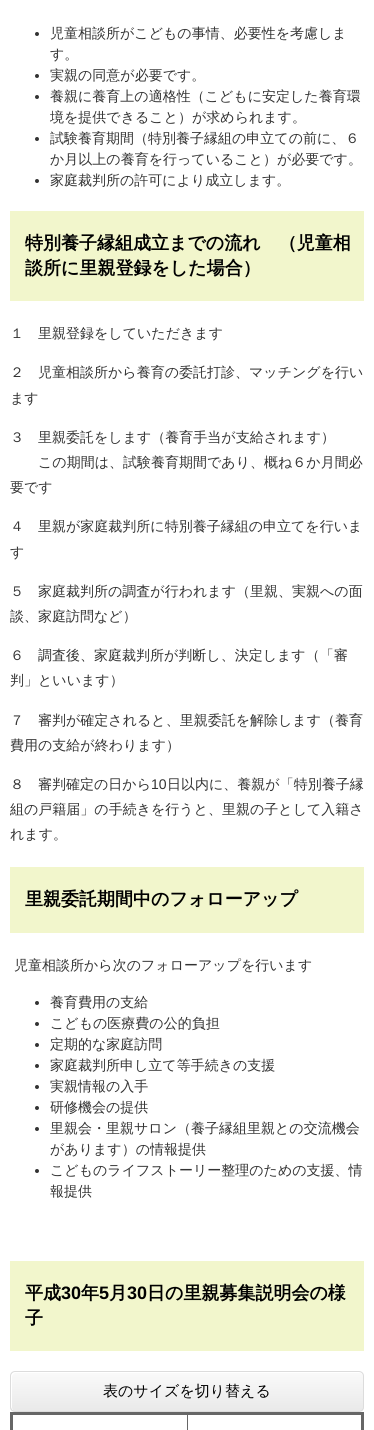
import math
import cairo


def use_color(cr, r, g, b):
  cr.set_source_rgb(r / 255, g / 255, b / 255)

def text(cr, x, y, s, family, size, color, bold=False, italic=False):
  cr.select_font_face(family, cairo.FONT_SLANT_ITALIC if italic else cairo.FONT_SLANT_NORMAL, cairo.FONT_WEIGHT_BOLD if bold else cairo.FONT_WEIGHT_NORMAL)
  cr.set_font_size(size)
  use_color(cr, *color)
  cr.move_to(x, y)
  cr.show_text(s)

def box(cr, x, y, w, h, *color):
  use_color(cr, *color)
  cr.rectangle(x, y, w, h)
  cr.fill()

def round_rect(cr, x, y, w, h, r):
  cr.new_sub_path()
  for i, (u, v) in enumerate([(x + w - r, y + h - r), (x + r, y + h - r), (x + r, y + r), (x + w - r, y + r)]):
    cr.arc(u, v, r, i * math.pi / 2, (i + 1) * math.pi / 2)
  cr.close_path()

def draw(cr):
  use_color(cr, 255, 255, 255)
  cr.paint()
  use_color(cr, 51, 51, 51)
  cr.arc(37, 34, 2, 0, 2 * math.pi)
  cr.fill()
  cr.arc(37, 76, 2, 0, 2 * math.pi)
  cr.fill()
  cr.arc(37, 97, 2, 0, 2 * math.pi)
  cr.fill()
  cr.arc(37, 139, 2, 0, 2 * math.pi)
  cr.fill()
  cr.arc(37, 181, 2, 0, 2 * math.pi)
  cr.fill()
  box(cr, 10, 211, 354, 90, 242, 246, 204)
  box(cr, 10, 867, 354, 66, 242, 246, 204)
  use_color(cr, 51, 51, 51)
  cr.arc(37, 1003, 2, 0, 2 * math.pi)
  cr.fill()
  cr.arc(37, 1024, 2, 0, 2 * math.pi)
  cr.fill()
  cr.arc(37, 1045, 2, 0, 2 * math.pi)
  cr.fill()
  cr.arc(37, 1066, 2, 0, 2 * math.pi)
  cr.fill()
  cr.arc(37, 1087, 2, 0, 2 * math.pi)
  cr.fill()
  cr.arc(37, 1108, 2, 0, 2 * math.pi)
  cr.fill()
  cr.arc(37, 1129, 2, 0, 2 * math.pi)
  cr.fill()
  cr.arc(37, 1171, 2, 0, 2 * math.pi)
  cr.fill()
  box(cr, 10, 1261, 354, 90, 242, 246, 204)
  cr.save()
  round_rect(cr, 10, 1371, 354, 41, 5)
  cr.clip()
  gradient = cairo.LinearGradient(11, 1372, 11, 1411)
  gradient.add_color_stop_rgba(0.05, 0.976, 0.976, 0.976, 1)
  gradient.add_color_stop_rgba(1, 0.914, 0.914, 0.914, 1)
  cr.set_source(gradient)
  cr.rectangle(10, 1372, 354, 39)
  cr.fill()
  cr.restore()
  use_color(cr, 255, 255, 255)
  cr.new_path()
  cr.move_to(16, 1373)
  cr.line_to(360, 1373)
  cr.line_to(362, 1374)
  cr.curve_to(362, 1373, 360, 1372, 359, 1372)
  cr.line_to(15, 1372)
  cr.curve_to(13, 1372, 11, 1374, 11, 1376)
  cr.line_to(11, 1407)
  cr.curve_to(11, 1408, 12, 1410, 13, 1410)
  cr.line_to(12, 1408)
  cr.line_to(12, 1377)
  cr.curve_to(12, 1375, 14, 1373, 16, 1373)
  cr.close_path()
  cr.fill()
  round_rect(cr, 10.5, 1371.5, 353, 40, 4.5)
  use_color(cr, 220, 220, 220)
  cr.set_line_width(1)
  cr.stroke()
  box(cr, 187, 1413, 1, 17, 102, 102, 102)
  box(cr, 10, 1412, 354, 3, 102, 102, 102)
  box(cr, 361, 1412, 3, 18, 102, 102, 102)
  box(cr, 10, 1412, 3, 18, 102, 102, 102)
  text(cr, 50, 38, "児童相談所がこどもの事情、必要性を考慮しま", "WenQuanYi Zen Hei Medium", 14, (51, 51, 51))
  text(cr, 50, 59, "す。", "WenQuanYi Zen Hei Medium", 14, (51, 51, 51))
  text(cr, 50, 80, "実親の同意が必要です。", "WenQuanYi Zen Hei Medium", 14, (51, 51, 51))
  text(cr, 50, 101, "養親に養育上の適格性（こどもに安定した養育環", "WenQuanYi Zen Hei Medium", 14, (51, 51, 51))
  text(cr, 50, 122, "境を提供できること）が求められます。", "WenQuanYi Zen Hei Medium", 14, (51, 51, 51))
  text(cr, 50, 143, "試験養育期間（特別養子縁組の申立ての前に、６", "WenQuanYi Zen Hei Medium", 14, (51, 51, 51))
  text(cr, 50, 164, "か月以上の養育を行っていること）が必要です。", "WenQuanYi Zen Hei Medium", 14, (51, 51, 51))
  text(cr, 50, 185, "家庭裁判所の許可により成立します。", "WenQuanYi Zen Hei Medium", 14, (51, 51, 51))
  text(cr, 25, 249, "特別養子縁組成立までの流れ　（児童相", "WenQuanYi Zen Hei", 18, (0, 0, 0), bold=True)
  text(cr, 25, 274, "談所に里親登録をした場合）", "WenQuanYi Zen Hei", 18, (0, 0, 0), bold=True)
  text(cr, 10, 338, "１　里親登録をしていただきます", "WenQuanYi Zen Hei Medium", 14, (51, 51, 51))
  text(cr, 10, 377, "２　児童相談所から養育の委託打診、マッチングを行い", "WenQuanYi Zen Hei Medium", 14, (51, 51, 51))
  text(cr, 10, 403, "ます", "WenQuanYi Zen Hei Medium", 14, (51, 51, 51))
  text(cr, 10, 442, "３　里親委託をします（養育手当が支給されます）", "WenQuanYi Zen Hei Medium", 14, (51, 51, 51))
  text(cr, 38, 467, "この期間は、試験養育期間であり、概ね６か月間必", "WenQuanYi Zen Hei Medium", 14, (51, 51, 51))
  text(cr, 10, 492, "要です", "WenQuanYi Zen Hei Medium", 14, (51, 51, 51))
  text(cr, 10, 531, "４　里親が家庭裁判所に特別養子縁組の申立てを行いま", "WenQuanYi Zen Hei Medium", 14, (51, 51, 51))
  text(cr, 10, 557, "す", "WenQuanYi Zen Hei Medium", 14, (51, 51, 51))
  text(cr, 10, 596, "５　家庭裁判所の調査が行われます（里親、実親への面", "WenQuanYi Zen Hei Medium", 14, (51, 51, 51))
  text(cr, 10, 621, "談、家庭訪問など）", "WenQuanYi Zen Hei Medium", 14, (51, 51, 51))
  text(cr, 10, 660, "６　調査後、家庭裁判所が判断し、決定します（「審", "WenQuanYi Zen Hei Medium", 14, (51, 51, 51))
  text(cr, 10, 685, "判」といいます）", "WenQuanYi Zen Hei Medium", 14, (51, 51, 51))
  text(cr, 10, 725, "７　審判が確定されると、里親委託を解除します（養育", "WenQuanYi Zen Hei Medium", 14, (51, 51, 51))
  text(cr, 10, 750, "費用の支給が終わります）", "WenQuanYi Zen Hei Medium", 14, (51, 51, 51))
  text(cr, 10, 789, "８　審判確定の日から", "WenQuanYi Zen Hei Medium", 14, (51, 51, 51))
  text(cr, 151, 789, "10", "Liberation Sans", 14, (51, 51, 51))
  text(cr, 167, 789, "日以内に、養親が「特別養子縁", "WenQuanYi Zen Hei Medium", 14, (51, 51, 51))
  text(cr, 10, 814, "組の戸籍届」の手続きを行うと、里親の子として入籍さ", "WenQuanYi Zen Hei Medium", 14, (51, 51, 51))
  text(cr, 10, 839, "れます。", "WenQuanYi Zen Hei Medium", 14, (51, 51, 51))
  text(cr, 25, 905, "里親委託期間中のフォローアップ", "WenQuanYi Zen Hei", 18, (0, 0, 0), bold=True)
  text(cr, 14, 970, "児童相談所から次のフォローアップを行います", "WenQuanYi Zen Hei Medium", 14, (51, 51, 51))
  text(cr, 50, 1007, "養育費用の支給", "WenQuanYi Zen Hei Medium", 14, (51, 51, 51))
  text(cr, 50, 1028, "こどもの医療費の公的負担", "WenQuanYi Zen Hei Medium", 14, (51, 51, 51))
  text(cr, 50, 1049, "定期的な家庭訪問", "WenQuanYi Zen Hei Medium", 14, (51, 51, 51))
  text(cr, 50, 1070, "家庭裁判所申し立て等手続きの支援", "WenQuanYi Zen Hei Medium", 14, (51, 51, 51))
  text(cr, 50, 1091, "実親情報の入手", "WenQuanYi Zen Hei Medium", 14, (51, 51, 51))
  text(cr, 50, 1112, "研修機会の提供", "WenQuanYi Zen Hei Medium", 14, (51, 51, 51))
  text(cr, 50, 1133, "里親会・里親サロン（養子縁組里親との交流機会", "WenQuanYi Zen Hei Medium", 14, (51, 51, 51))
  text(cr, 50, 1154, "があります）の情報提供", "WenQuanYi Zen Hei Medium", 14, (51, 51, 51))
  text(cr, 50, 1175, "こどものライフストーリー整理のための支援、情", "WenQuanYi Zen Hei Medium", 14, (51, 51, 51))
  text(cr, 50, 1196, "報提供", "WenQuanYi Zen Hei Medium", 14, (51, 51, 51))
  text(cr, 25, 1299, "平成", "WenQuanYi Zen Hei", 18, (0, 0, 0), bold=True)
  text(cr, 61, 1299, "30", "Liberation Sans", 18, (0, 0, 0), bold=True)
  text(cr, 81, 1299, "年", "WenQuanYi Zen Hei", 18, (0, 0, 0), bold=True)
  text(cr, 99, 1299, "5", "Liberation Sans", 18, (0, 0, 0), bold=True)
  text(cr, 109, 1299, "月", "WenQuanYi Zen Hei", 18, (0, 0, 0), bold=True)
  text(cr, 127, 1299, "30", "Liberation Sans", 18, (0, 0, 0), bold=True)
  text(cr, 147, 1299, "日の里親募集説明会の様", "WenQuanYi Zen Hei", 18, (0, 0, 0), bold=True)
  text(cr, 25, 1324, "子", "WenQuanYi Zen Hei", 18, (0, 0, 0), bold=True)
  text(cr, 103, 1396, "表のサイズを切り替える", "WenQuanYi Zen Hei Medium", 15, (0, 0, 0))


surface = cairo.ImageSurface(cairo.FORMAT_RGB24, 374, 1430)
cr = cairo.Context(surface)
options = cairo.FontOptions()
options.set_hint_metrics(cairo.HINT_METRICS_OFF)
options.set_hint_style(cairo.HINT_STYLE_NONE)
cr.set_font_options(options)
cr.set_miter_limit(4)
draw(cr)
surface.write_to_png("out.png")
